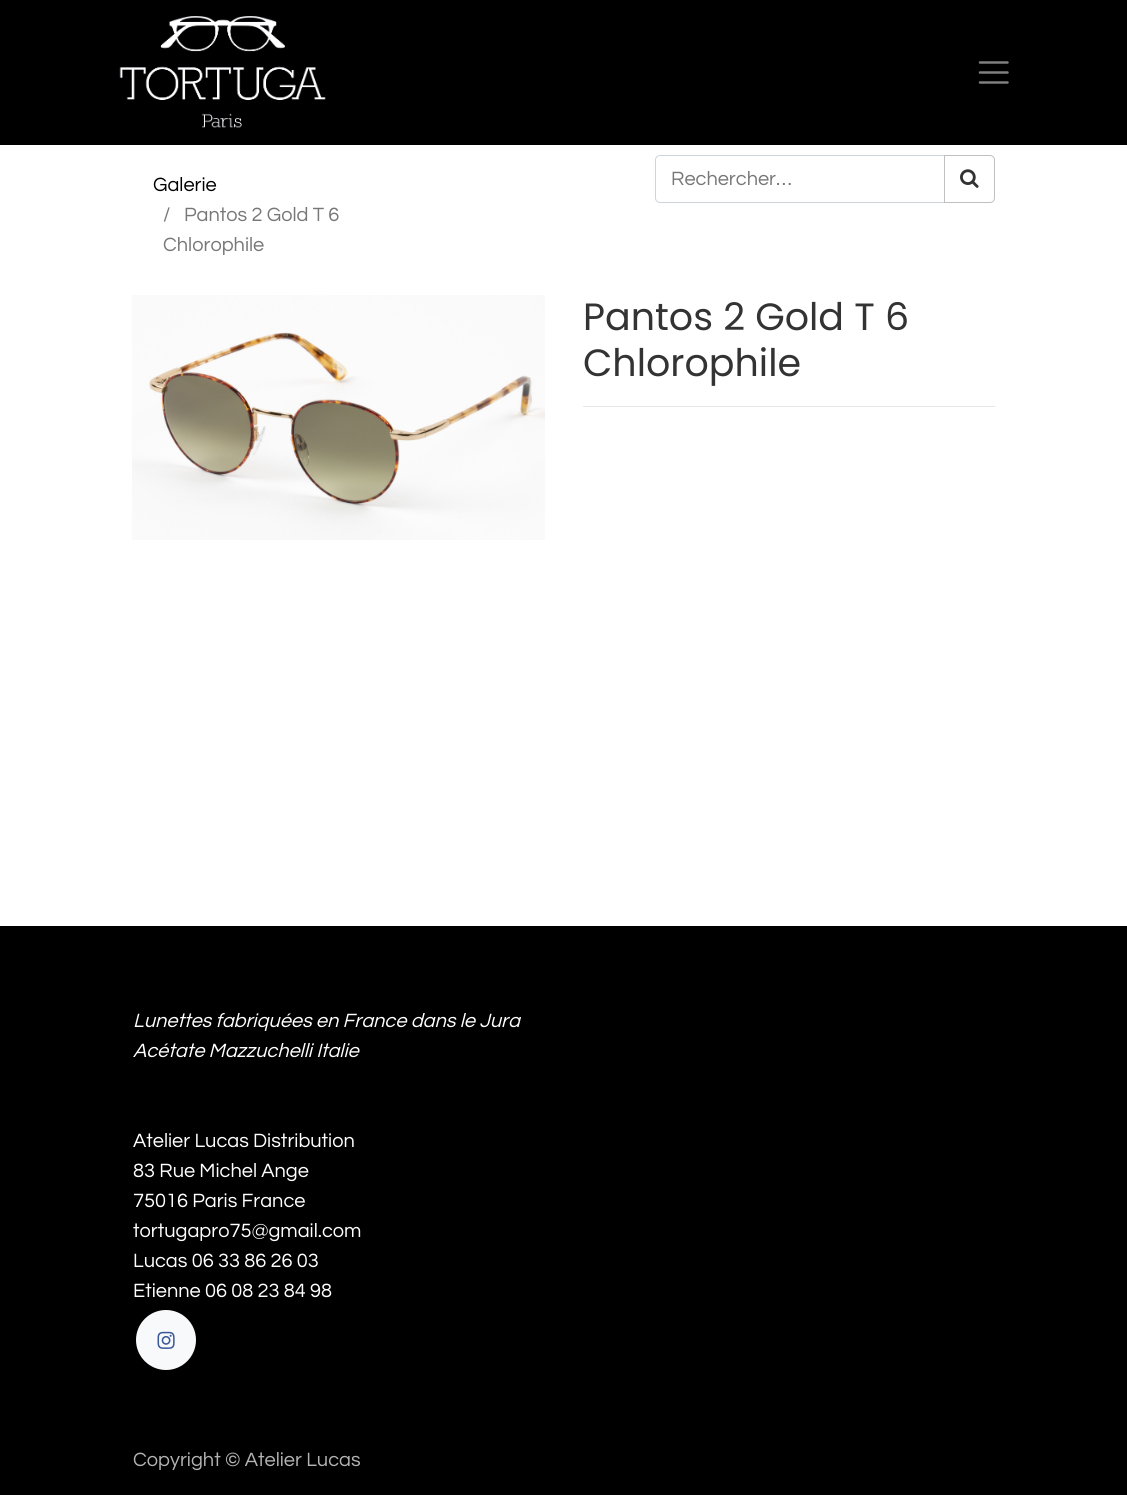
import math
import cairo


def use_color(cr, r, g, b):
  cr.set_source_rgb(r / 255, g / 255, b / 255)

def text(cr, x, y, s, family, size, color, bold=False, italic=False):
  cr.select_font_face(family, cairo.FONT_SLANT_ITALIC if italic else cairo.FONT_SLANT_NORMAL, cairo.FONT_WEIGHT_BOLD if bold else cairo.FONT_WEIGHT_NORMAL)
  cr.set_font_size(size)
  use_color(cr, *color)
  cr.move_to(x, y)
  cr.show_text(s)

def box(cr, x, y, w, h, *color):
  use_color(cr, *color)
  cr.rectangle(x, y, w, h)
  cr.fill()

def picture(cr, path, x, y, w, h):
  cr.save()
  cr.set_source_surface(cairo.ImageSurface.create_from_png(path), x, y)
  cr.rectangle(x, y, w, h)
  cr.fill()
  cr.restore()

def draw(cr):
  use_color(cr, 255, 255, 255)
  cr.paint()
  box(cr, 0, 0, 1127, 145, 0, 0, 0)
  picture(cr, "img_01.png", 119, 16, 207, 112)
  cr.new_path()
  cr.move_to(980, 62.5)
  cr.line_to(1007.5, 62.5)
  cr.move_to(980, 72.5)
  cr.line_to(1007.5, 72.5)
  cr.move_to(980, 82.5)
  cr.line_to(1007.5, 82.5)
  use_color(cr, 128, 128, 128)
  cr.set_line_width(2.5)
  cr.set_line_cap(cairo.LINE_CAP_ROUND)
  cr.stroke()
  cr.new_path()
  cr.move_to(660, 155.5)
  cr.line_to(944.5, 155.5)
  cr.line_to(944.5, 202.5)
  cr.line_to(660, 202.5)
  cr.curve_to(657.5, 202.5, 655.5, 200.5, 655.5, 198)
  cr.line_to(655.5, 160)
  cr.curve_to(655.5, 157.5, 657.5, 155.5, 660, 155.5)
  cr.close_path()
  use_color(cr, 206, 212, 218)
  cr.set_line_width(1)
  cr.set_line_cap(cairo.LINE_CAP_BUTT)
  cr.stroke()
  use_color(cr, 255, 255, 255)
  cr.new_path()
  cr.move_to(944.5, 155.5)
  cr.line_to(990, 155.5)
  cr.curve_to(992.5, 155.5, 994.5, 157.5, 994.5, 160)
  cr.line_to(994.5, 198)
  cr.curve_to(994.5, 200.5, 992.5, 202.5, 990, 202.5)
  cr.line_to(944.5, 202.5)
  cr.close_path()
  cr.fill_preserve()
  use_color(cr, 192, 192, 192)
  cr.stroke()
  picture(cr, "img_02.png", 960, 169, 19, 19)
  picture(cr, "img_03.png", 132, 295, 413, 245)
  box(cr, 583, 406, 412, 1, 230, 230, 230)
  box(cr, 0, 926, 1127, 569, 0, 0, 0)
  use_color(cr, 248, 249, 250)
  cr.arc(166, 1340, 30, 0, 2 * math.pi)
  cr.fill()
  picture(cr, "img_04.png", 157, 1331, 18, 18)
  text(cr, 153, 191, "Galerie", "Questrial", 20, (0, 0, 0))
  text(cr, 163, 221, "/", "Questrial", 20, (119, 119, 119))
  text(cr, 184, 221, "Pantos 2 Gold T 6", "Questrial", 20, (119, 119, 119))
  text(cr, 163, 251, "Chlorophile", "Questrial", 20, (119, 119, 119))
  text(cr, 671, 185, "Rechercher…", "Questrial", 20, (119, 119, 119))
  text(cr, 583, 330, "Pantos 2 Gold T 6", "Poppins", 38, (51, 51, 51))
  text(cr, 583, 376, "Chlorophile", "Poppins", 38, (51, 51, 51))
  text(cr, 133, 1027, "Lunettes fabriquées en France dans le Jura", "Questrial", 20, (255, 255, 255), italic=True)
  text(cr, 133, 1057, "Acétate Mazzuchelli Italie", "Questrial", 20, (255, 255, 255), italic=True)
  text(cr, 133, 1147, "Atelier Lucas Distribution", "Questrial", 20, (255, 255, 255))
  text(cr, 133, 1177, "83 Rue Michel Ange", "Questrial", 20, (255, 255, 255))
  text(cr, 133, 1207, "75016 Paris France", "Questrial", 20, (255, 255, 255))
  text(cr, 133, 1237, "tortugapro75@gmail.com", "Questrial", 20, (255, 255, 255))
  text(cr, 133, 1267, "Lucas 06 33 86 26 03", "Questrial", 20, (255, 255, 255))
  text(cr, 133, 1297, "Etienne 06 08 23 84 98", "Questrial", 20, (255, 255, 255))
  text(cr, 133, 1466, "Copyright © Atelier Lucas", "Questrial", 20, (179, 179, 179))


surface = cairo.ImageSurface(cairo.FORMAT_RGB24, 1127, 1495)
cr = cairo.Context(surface)
options = cairo.FontOptions()
options.set_hint_metrics(cairo.HINT_METRICS_OFF)
options.set_hint_style(cairo.HINT_STYLE_NONE)
cr.set_font_options(options)
cr.set_miter_limit(4)
draw(cr)
surface.write_to_png("out.png")
